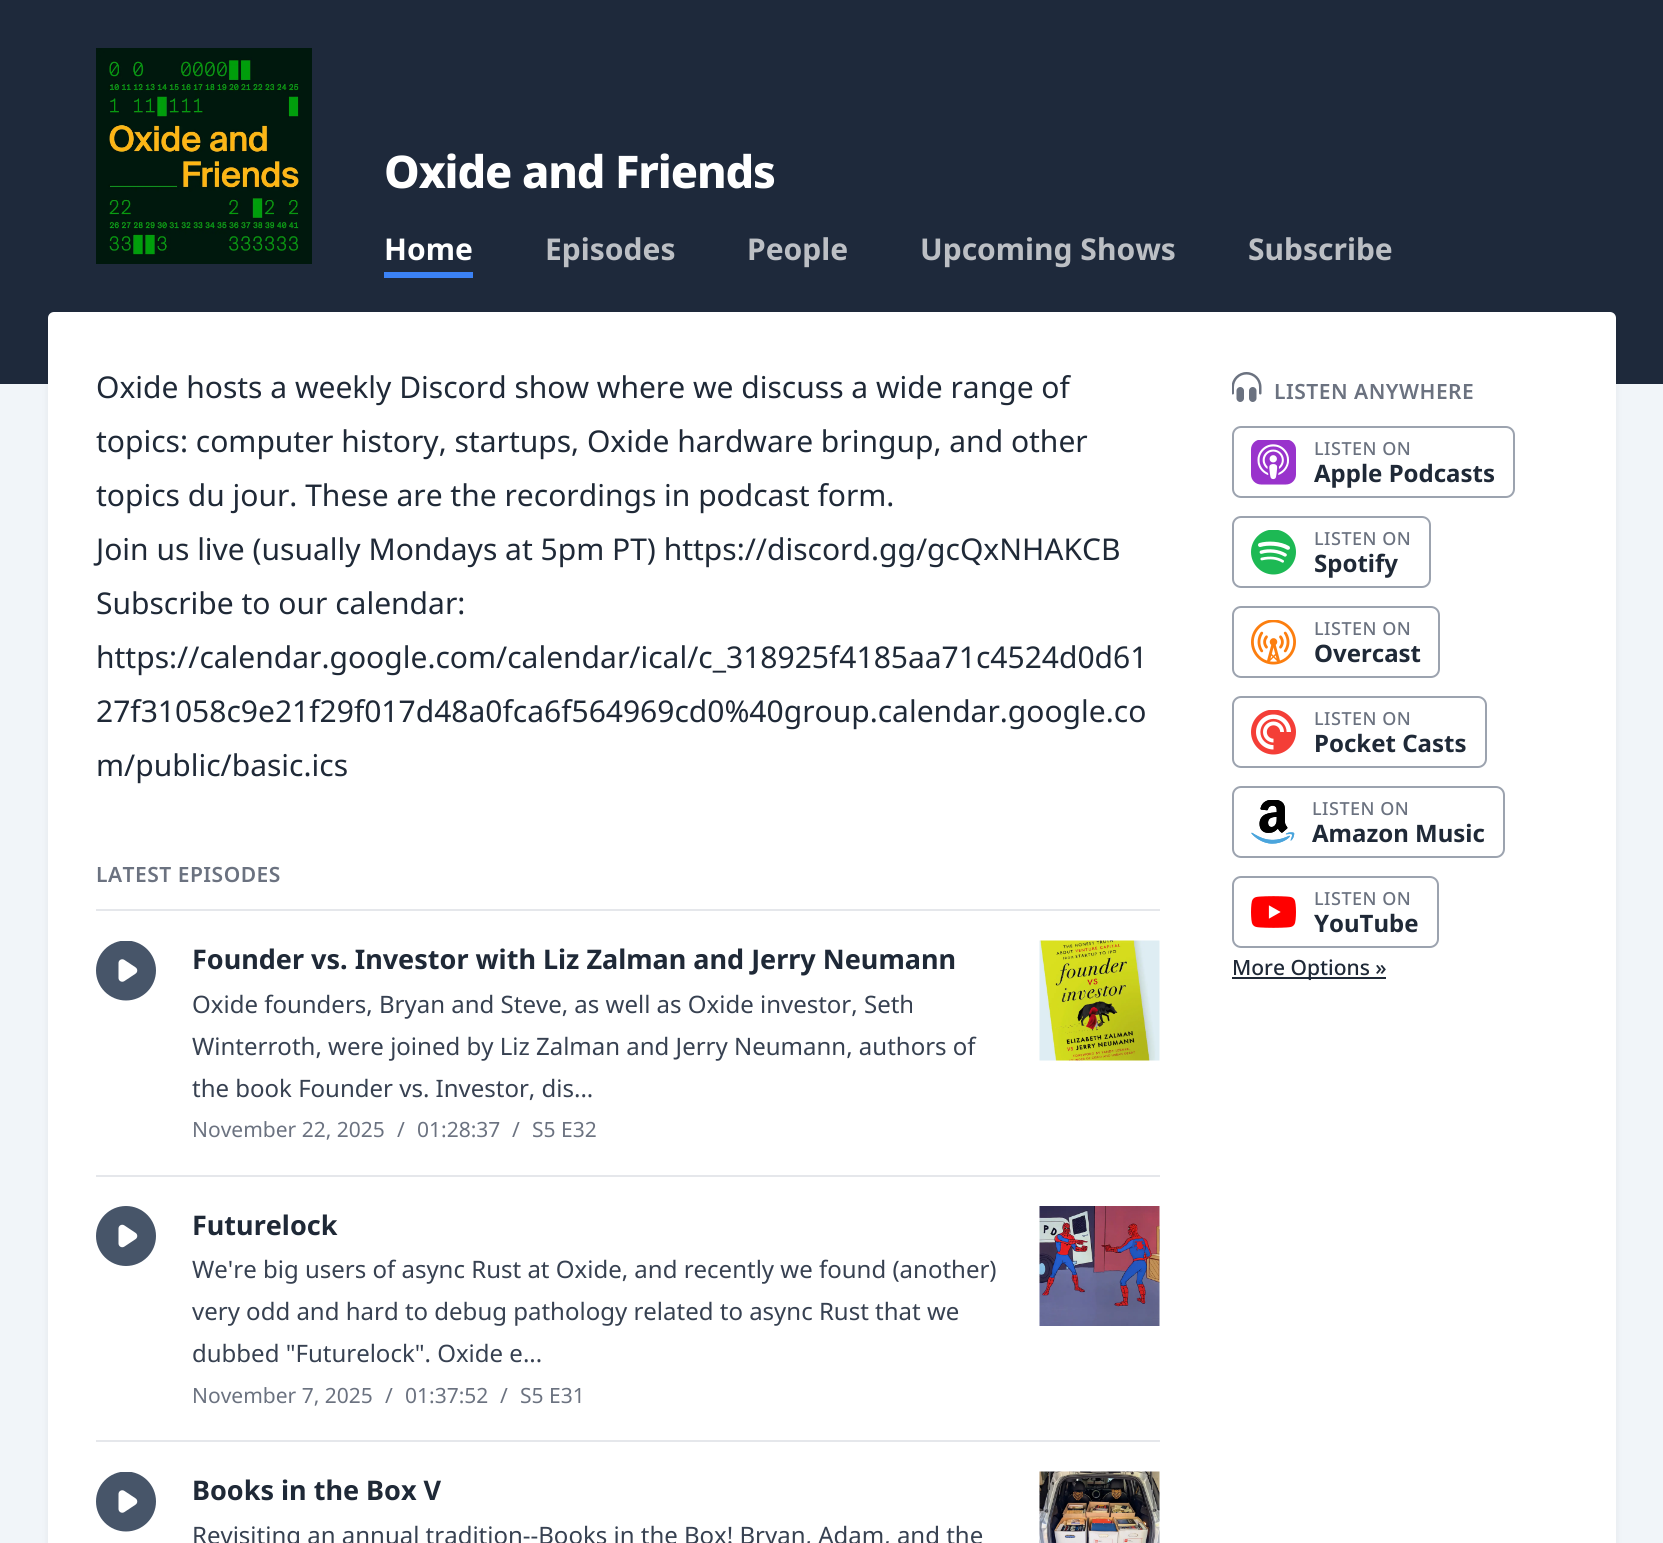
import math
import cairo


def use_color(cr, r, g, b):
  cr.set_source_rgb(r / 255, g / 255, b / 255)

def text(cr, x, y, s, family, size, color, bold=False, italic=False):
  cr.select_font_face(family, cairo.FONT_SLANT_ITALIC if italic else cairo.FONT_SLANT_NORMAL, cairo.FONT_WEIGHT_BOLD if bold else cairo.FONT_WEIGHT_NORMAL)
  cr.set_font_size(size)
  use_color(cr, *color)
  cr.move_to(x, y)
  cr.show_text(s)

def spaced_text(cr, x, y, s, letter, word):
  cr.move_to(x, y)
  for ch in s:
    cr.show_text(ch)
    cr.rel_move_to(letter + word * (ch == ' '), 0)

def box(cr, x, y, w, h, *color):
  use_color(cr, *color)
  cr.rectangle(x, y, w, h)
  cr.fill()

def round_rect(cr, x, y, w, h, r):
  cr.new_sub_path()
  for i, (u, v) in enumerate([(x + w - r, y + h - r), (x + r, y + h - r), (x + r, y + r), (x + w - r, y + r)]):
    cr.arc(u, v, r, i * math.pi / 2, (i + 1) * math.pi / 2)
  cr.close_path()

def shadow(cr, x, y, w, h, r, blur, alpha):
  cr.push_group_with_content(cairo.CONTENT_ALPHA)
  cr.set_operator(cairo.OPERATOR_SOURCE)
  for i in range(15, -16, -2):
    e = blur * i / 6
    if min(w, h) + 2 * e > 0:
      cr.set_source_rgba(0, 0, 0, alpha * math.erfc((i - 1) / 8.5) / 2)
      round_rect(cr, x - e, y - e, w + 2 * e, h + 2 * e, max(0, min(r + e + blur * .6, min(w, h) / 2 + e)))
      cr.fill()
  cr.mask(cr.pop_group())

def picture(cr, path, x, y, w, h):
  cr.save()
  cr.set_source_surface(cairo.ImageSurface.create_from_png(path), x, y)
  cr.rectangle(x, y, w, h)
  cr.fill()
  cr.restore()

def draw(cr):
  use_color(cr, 241, 245, 249)
  cr.paint()
  box(cr, 0, 0, 1663, 384, 30, 41, 59)
  picture(cr, "img_01.png", 96, 48, 216, 216)
  box(cr, 384, 272, 89, 6, 59, 130, 246)
  use_color(cr, 0, 0, 0)
  shadow(cr, 50, 320, 1564, 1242, 5, 4.5, 0.1)
  use_color(cr, 255, 255, 255)
  round_rect(cr, 48, 312, 1568, 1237, 6)
  cr.fill()
  box(cr, 96, 909, 1064, 2, 229, 231, 235)
  picture(cr, "img_02.png", 96, 941, 60, 60)
  picture(cr, "img_03.png", 1039, 940, 121, 121)
  box(cr, 96, 1175, 1064, 2, 229, 231, 235)
  picture(cr, "img_04.png", 96, 1206, 60, 60)
  picture(cr, "img_05.png", 1039, 1206, 121, 120)
  box(cr, 96, 1440, 1064, 2, 229, 231, 235)
  picture(cr, "img_02.png", 96, 1472, 60, 60)
  picture(cr, "img_06.png", 1039, 1471, 121, 72)
  picture(cr, "img_07.png", 1232, 372, 30, 30)
  round_rect(cr, 1233, 427, 281, 70, 8)
  use_color(cr, 156, 163, 175)
  cr.stroke()
  picture(cr, "img_08.png", 1251, 440, 45, 45)
  round_rect(cr, 1233, 517, 197, 70, 8)
  cr.stroke()
  picture(cr, "img_09.png", 1251, 530, 45, 45)
  round_rect(cr, 1233, 607, 206, 70, 8)
  cr.stroke()
  picture(cr, "img_10.png", 1251, 620, 45, 45)
  round_rect(cr, 1233, 697, 253, 70, 8)
  cr.stroke()
  picture(cr, "img_11.png", 1251, 710, 45, 45)
  round_rect(cr, 1233, 787, 271, 70, 8)
  cr.stroke()
  picture(cr, "img_12.png", 1251, 800, 44, 44)
  round_rect(cr, 1233, 877, 205, 70, 8)
  cr.stroke()
  picture(cr, "img_13.png", 1251, 896, 45, 32)
  box(cr, 1232, 977, 154, 2, 31, 41, 55)
  cr.select_font_face("Noto Sans ExtraBold")
  cr.set_font_size(45)
  use_color(cr, 255, 255, 255)
  spaced_text(cr, 384, 188, "Oxide and Friends", -1.1, 0)
  text(cr, 384, 260, "Home", "Noto Sans", 30, (255, 255, 255), bold=True)
  text(cr, 545, 260, "Episodes", "Noto Sans", 30, (188, 191, 196), bold=True)
  text(cr, 747, 260, "People", "Noto Sans", 30, (188, 191, 196), bold=True)
  text(cr, 920, 260, "Upcoming Shows", "Noto Sans", 30, (188, 191, 196), bold=True)
  text(cr, 1248, 260, "Subscribe", "Noto Sans", 30, (188, 191, 196), bold=True)
  text(cr, 96, 398, "Oxide hosts a weekly Discord show where we discuss a wide range of", "Noto Sans", 30, (31, 41, 55))
  text(cr, 96, 452, "topics: computer history, startups, Oxide hardware bringup, and other", "Noto Sans", 30, (31, 41, 55))
  text(cr, 96, 506, "topics du jour. These are the recordings in podcast form.", "Noto Sans", 30, (31, 41, 55))
  text(cr, 96, 560, "Join us live (usually Mondays at 5pm PT) https://discord.gg/gcQxNHAKCB", "Noto Sans", 30, (31, 41, 55))
  text(cr, 96, 614, "Subscribe to our calendar:", "Noto Sans", 30, (31, 41, 55))
  text(cr, 96, 668, "https://calendar.google.com/calendar/ical/c_318925f4185aa71c4524d0d61", "Noto Sans", 30, (31, 41, 55))
  text(cr, 96, 722, "27f31058c9e21f29f017d48a0fca6f564969cd0%40group.calendar.google.co", "Noto Sans", 30, (31, 41, 55))
  text(cr, 96, 776, "m/public/basic.ics", "Noto Sans", 30, (31, 41, 55))
  cr.select_font_face("Noto Sans SemiBold")
  cr.set_font_size(21)
  use_color(cr, 107, 114, 128)
  spaced_text(cr, 96, 882, "LATEST EPISODES", 0.5, 0)
  text(cr, 192, 969, "Founder vs. Investor with Liz Zalman and Jerry Neumann", "Noto Sans", 27, (31, 41, 55), bold=True)
  text(cr, 192, 1013, "Oxide founders, Bryan and Steve, as well as Oxide investor, Seth", "Noto Sans", 24, (55, 65, 81))
  text(cr, 192, 1055, "Winterroth, were joined by Liz Zalman and Jerry Neumann, authors of", "Noto Sans", 24, (55, 65, 81))
  text(cr, 192, 1097, "the book Founder vs. Investor, dis...", "Noto Sans", 24, (55, 65, 81))
  text(cr, 192, 1137, "November 22, 2025", "Noto Sans", 21, (107, 114, 128))
  text(cr, 397, 1137, "/", "Noto Sans", 21, (107, 114, 128))
  text(cr, 417, 1137, "01:28:37", "Noto Sans", 21, (107, 114, 128))
  text(cr, 512, 1137, "/", "Noto Sans", 21, (107, 114, 128))
  text(cr, 532, 1137, "S5 E32", "Noto Sans", 21, (107, 114, 128))
  text(cr, 192, 1235, "Futurelock", "Noto Sans", 27, (31, 41, 55), bold=True)
  text(cr, 192, 1278, "We're big users of async Rust at Oxide, and recently we found (another)", "Noto Sans", 24, (55, 65, 81))
  text(cr, 192, 1320, "very odd and hard to debug pathology related to async Rust that we", "Noto Sans", 24, (55, 65, 81))
  text(cr, 192, 1362, "dubbed \"Futurelock\". Oxide e...", "Noto Sans", 24, (55, 65, 81))
  text(cr, 192, 1403, "November 7, 2025", "Noto Sans", 21, (107, 114, 128))
  text(cr, 385, 1403, "/", "Noto Sans", 21, (107, 114, 128))
  text(cr, 405, 1403, "01:37:52", "Noto Sans", 21, (107, 114, 128))
  text(cr, 500, 1403, "/", "Noto Sans", 21, (107, 114, 128))
  text(cr, 520, 1403, "S5 E31", "Noto Sans", 21, (107, 114, 128))
  text(cr, 192, 1500, "Books in the Box V", "Noto Sans", 27, (31, 41, 55), bold=True)
  text(cr, 192, 1544, "Revisiting an annual tradition--Books in the Box! Bryan, Adam, and the", "Noto Sans", 24, (55, 65, 81))
  cr.select_font_face("Noto Sans SemiBold")
  cr.set_font_size(21)
  use_color(cr, 107, 114, 128)
  spaced_text(cr, 1274, 399, "LISTEN ANYWHERE", 0.5, 0)
  cr.select_font_face("Noto Sans Medium")
  cr.set_font_size(18)
  spaced_text(cr, 1314, 455, "LISTEN ON", 0.5, 0)
  text(cr, 1314, 482, "Apple Podcasts", "Noto Sans", 24, (31, 41, 55), bold=True)
  cr.select_font_face("Noto Sans Medium")
  cr.set_font_size(18)
  use_color(cr, 107, 114, 128)
  spaced_text(cr, 1314, 545, "LISTEN ON", 0.5, 0)
  text(cr, 1314, 572, "Spotify", "Noto Sans", 24, (31, 41, 55), bold=True)
  cr.select_font_face("Noto Sans Medium")
  cr.set_font_size(18)
  use_color(cr, 107, 114, 128)
  spaced_text(cr, 1314, 635, "LISTEN ON", 0.5, 0)
  text(cr, 1314, 662, "Overcast", "Noto Sans", 24, (31, 41, 55), bold=True)
  cr.select_font_face("Noto Sans Medium")
  cr.set_font_size(18)
  use_color(cr, 107, 114, 128)
  spaced_text(cr, 1314, 725, "LISTEN ON", 0.5, 0)
  text(cr, 1314, 752, "Pocket Casts", "Noto Sans", 24, (31, 41, 55), bold=True)
  cr.select_font_face("Noto Sans Medium")
  cr.set_font_size(18)
  use_color(cr, 107, 114, 128)
  spaced_text(cr, 1312, 815, "LISTEN ON", 0.5, 0)
  text(cr, 1312, 842, "Amazon Music", "Noto Sans", 24, (31, 41, 55), bold=True)
  cr.select_font_face("Noto Sans Medium")
  cr.set_font_size(18)
  use_color(cr, 107, 114, 128)
  spaced_text(cr, 1314, 905, "LISTEN ON", 0.5, 0)
  text(cr, 1314, 932, "YouTube", "Noto Sans", 24, (31, 41, 55), bold=True)
  text(cr, 1232, 975, "More Options »", "Noto Sans Medium", 21, (31, 41, 55))


surface = cairo.ImageSurface(cairo.FORMAT_RGB24, 1663, 1543)
cr = cairo.Context(surface)
options = cairo.FontOptions()
options.set_hint_metrics(cairo.HINT_METRICS_OFF)
options.set_hint_style(cairo.HINT_STYLE_NONE)
cr.set_font_options(options)
cr.set_miter_limit(4)
draw(cr)
surface.write_to_png("out.png")
